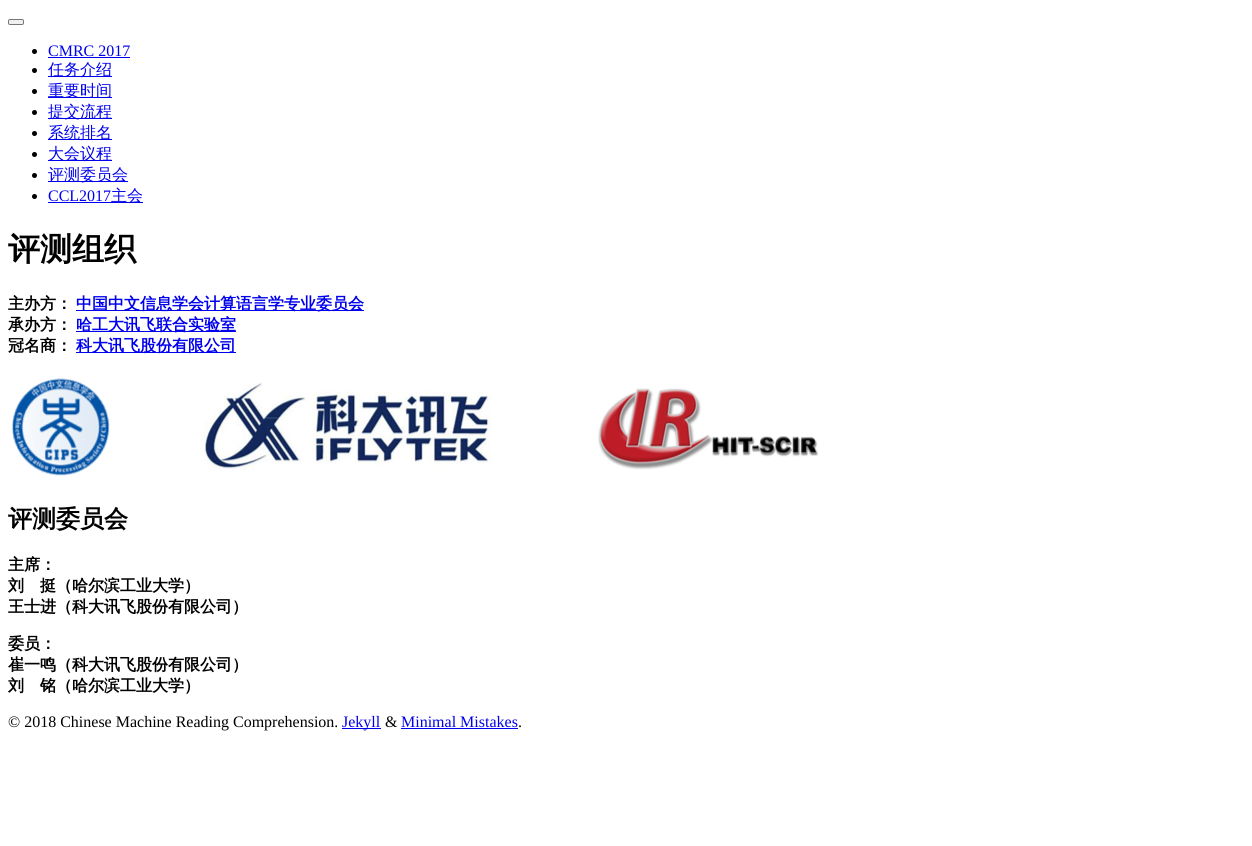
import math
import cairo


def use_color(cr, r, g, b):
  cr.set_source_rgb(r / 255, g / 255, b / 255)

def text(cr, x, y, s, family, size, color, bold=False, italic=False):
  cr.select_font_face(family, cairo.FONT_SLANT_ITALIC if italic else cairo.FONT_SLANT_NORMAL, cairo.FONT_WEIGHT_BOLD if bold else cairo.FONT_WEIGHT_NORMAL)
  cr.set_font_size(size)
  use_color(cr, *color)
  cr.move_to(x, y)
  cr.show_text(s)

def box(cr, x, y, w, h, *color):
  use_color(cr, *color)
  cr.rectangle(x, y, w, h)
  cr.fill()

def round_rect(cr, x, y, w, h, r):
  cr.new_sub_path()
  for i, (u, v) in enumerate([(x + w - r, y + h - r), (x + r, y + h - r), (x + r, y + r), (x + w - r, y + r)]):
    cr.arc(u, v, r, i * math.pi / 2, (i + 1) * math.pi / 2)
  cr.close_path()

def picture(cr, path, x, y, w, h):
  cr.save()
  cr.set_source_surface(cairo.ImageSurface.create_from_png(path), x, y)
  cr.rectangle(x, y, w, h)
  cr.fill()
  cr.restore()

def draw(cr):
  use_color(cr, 255, 255, 255)
  cr.paint()
  use_color(cr, 239, 239, 239)
  round_rect(cr, 8.5, 19.5, 15, 5, 1.5)
  cr.fill_preserve()
  use_color(cr, 118, 118, 118)
  cr.set_line_width(1)
  cr.stroke()
  use_color(cr, 0, 0, 0)
  cr.arc(34.5, 51.5, 2.5, 0, 2 * math.pi)
  cr.fill()
  box(cr, 48, 57, 82, 1, 0, 0, 238)
  use_color(cr, 0, 0, 0)
  cr.arc(34.5, 70.5, 2.5, 0, 2 * math.pi)
  cr.fill()
  box(cr, 48, 76, 64, 1, 0, 0, 238)
  use_color(cr, 0, 0, 0)
  cr.arc(34.5, 91.5, 2.5, 0, 2 * math.pi)
  cr.fill()
  box(cr, 48, 97, 64, 1, 0, 0, 238)
  use_color(cr, 0, 0, 0)
  cr.arc(34.5, 112.5, 2.5, 0, 2 * math.pi)
  cr.fill()
  box(cr, 48, 118, 64, 1, 0, 0, 238)
  use_color(cr, 0, 0, 0)
  cr.arc(34.5, 133.5, 2.5, 0, 2 * math.pi)
  cr.fill()
  box(cr, 48, 139, 64, 1, 0, 0, 238)
  use_color(cr, 0, 0, 0)
  cr.arc(34.5, 154.5, 2.5, 0, 2 * math.pi)
  cr.fill()
  box(cr, 48, 160, 64, 1, 0, 0, 238)
  use_color(cr, 0, 0, 0)
  cr.arc(34.5, 175.5, 2.5, 0, 2 * math.pi)
  cr.fill()
  box(cr, 48, 181, 80, 1, 0, 0, 238)
  use_color(cr, 0, 0, 0)
  cr.arc(34.5, 196.5, 2.5, 0, 2 * math.pi)
  cr.fill()
  box(cr, 48, 202, 95, 1, 0, 0, 238)
  box(cr, 76, 310, 288, 1, 0, 0, 238)
  box(cr, 76, 331, 160, 1, 0, 0, 238)
  box(cr, 76, 352, 160, 1, 0, 0, 238)
  picture(cr, "img_01.png", 12, 378, 807, 98)
  box(cr, 342, 728, 39, 1, 0, 0, 238)
  box(cr, 401, 728, 117, 1, 0, 0, 238)
  text(cr, 48, 56, "CMRC 2017", "Liberation Serif", 16, (0, 0, 238))
  text(cr, 48, 75, "任务介绍", "WenQuanYi Zen Hei Medium", 16, (0, 0, 238))
  text(cr, 48, 96, "重要时间", "WenQuanYi Zen Hei Medium", 16, (0, 0, 238))
  text(cr, 48, 117, "提交流程", "WenQuanYi Zen Hei Medium", 16, (0, 0, 238))
  text(cr, 48, 138, "系统排名", "WenQuanYi Zen Hei Medium", 16, (0, 0, 238))
  text(cr, 48, 159, "大会议程", "WenQuanYi Zen Hei Medium", 16, (0, 0, 238))
  text(cr, 48, 180, "评测委员会", "WenQuanYi Zen Hei Medium", 16, (0, 0, 238))
  text(cr, 48, 201, "CCL2017", "Liberation Serif", 16, (0, 0, 238))
  text(cr, 111, 201, "主会", "WenQuanYi Zen Hei Medium", 16, (0, 0, 238))
  text(cr, 8, 260, "评测组织", "WenQuanYi Zen Hei", 32, (0, 0, 0), bold=True)
  text(cr, 8, 309, "主办方：", "WenQuanYi Zen Hei", 16, (0, 0, 0), bold=True)
  text(cr, 76, 309, "中国中文信息学会计算语言学专业委员会", "WenQuanYi Zen Hei", 16, (0, 0, 238), bold=True)
  text(cr, 8, 330, "承办方：", "WenQuanYi Zen Hei", 16, (0, 0, 0), bold=True)
  text(cr, 76, 330, "哈工大讯飞联合实验室", "WenQuanYi Zen Hei", 16, (0, 0, 238), bold=True)
  text(cr, 8, 351, "冠名商：", "WenQuanYi Zen Hei", 16, (0, 0, 0), bold=True)
  text(cr, 76, 351, "科大讯飞股份有限公司", "WenQuanYi Zen Hei", 16, (0, 0, 238), bold=True)
  text(cr, 8, 527, "评测委员会", "WenQuanYi Zen Hei", 24, (0, 0, 0), bold=True)
  text(cr, 8, 570, "主席：", "WenQuanYi Zen Hei", 16, (0, 0, 0), bold=True)
  text(cr, 8, 591, "刘", "WenQuanYi Zen Hei", 16, (0, 0, 0), bold=True)
  text(cr, 40, 591, "挺（哈尔滨工业大学）", "WenQuanYi Zen Hei", 16, (0, 0, 0), bold=True)
  text(cr, 8, 612, "王士进（科大讯飞股份有限公司）", "WenQuanYi Zen Hei", 16, (0, 0, 0), bold=True)
  text(cr, 8, 649, "委员：", "WenQuanYi Zen Hei", 16, (0, 0, 0), bold=True)
  text(cr, 8, 670, "崔一鸣（科大讯飞股份有限公司）", "WenQuanYi Zen Hei", 16, (0, 0, 0), bold=True)
  text(cr, 8, 691, "刘", "WenQuanYi Zen Hei", 16, (0, 0, 0), bold=True)
  text(cr, 40, 691, "铭（哈尔滨工业大学）", "WenQuanYi Zen Hei", 16, (0, 0, 0), bold=True)
  text(cr, 8, 727, "© 2018 Chinese Machine Reading Comprehension.", "Liberation Serif", 16, (0, 0, 0))
  text(cr, 342, 727, "Jekyll", "Liberation Serif", 16, (0, 0, 238))
  text(cr, 385, 727, "&", "Liberation Serif", 16, (0, 0, 0))
  text(cr, 401, 727, "Minimal Mistakes", "Liberation Serif", 16, (0, 0, 238))
  text(cr, 518, 727, ".", "Liberation Serif", 16, (0, 0, 0))


surface = cairo.ImageSurface(cairo.FORMAT_RGB24, 1252, 846)
cr = cairo.Context(surface)
options = cairo.FontOptions()
options.set_hint_metrics(cairo.HINT_METRICS_OFF)
options.set_hint_style(cairo.HINT_STYLE_NONE)
cr.set_font_options(options)
cr.set_miter_limit(4)
draw(cr)
surface.write_to_png("out.png")
